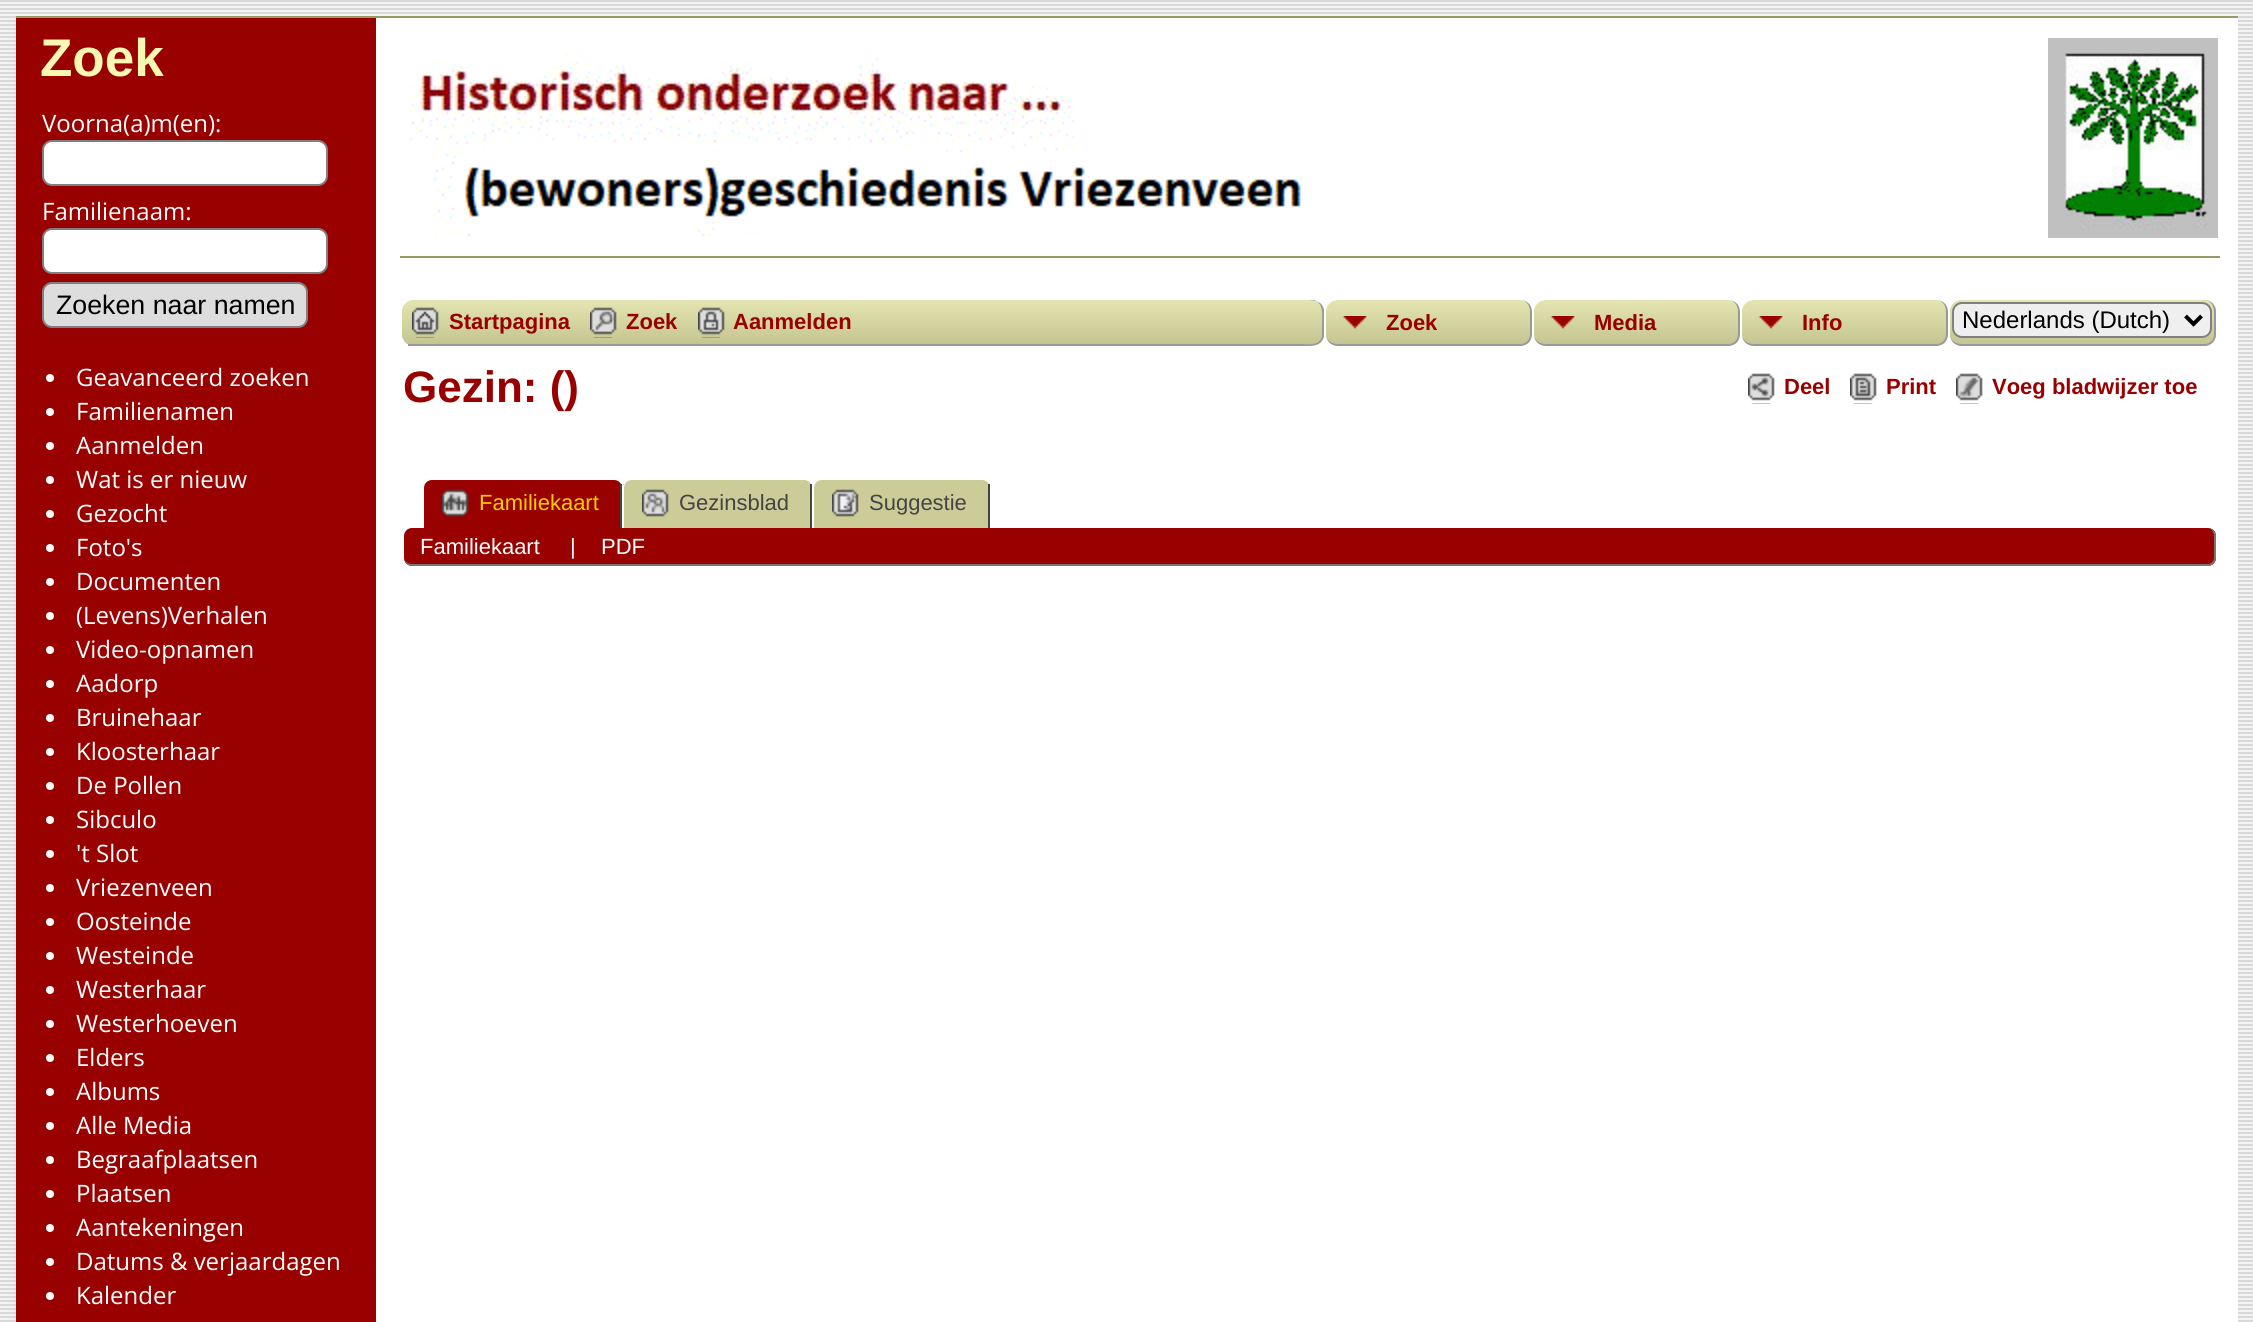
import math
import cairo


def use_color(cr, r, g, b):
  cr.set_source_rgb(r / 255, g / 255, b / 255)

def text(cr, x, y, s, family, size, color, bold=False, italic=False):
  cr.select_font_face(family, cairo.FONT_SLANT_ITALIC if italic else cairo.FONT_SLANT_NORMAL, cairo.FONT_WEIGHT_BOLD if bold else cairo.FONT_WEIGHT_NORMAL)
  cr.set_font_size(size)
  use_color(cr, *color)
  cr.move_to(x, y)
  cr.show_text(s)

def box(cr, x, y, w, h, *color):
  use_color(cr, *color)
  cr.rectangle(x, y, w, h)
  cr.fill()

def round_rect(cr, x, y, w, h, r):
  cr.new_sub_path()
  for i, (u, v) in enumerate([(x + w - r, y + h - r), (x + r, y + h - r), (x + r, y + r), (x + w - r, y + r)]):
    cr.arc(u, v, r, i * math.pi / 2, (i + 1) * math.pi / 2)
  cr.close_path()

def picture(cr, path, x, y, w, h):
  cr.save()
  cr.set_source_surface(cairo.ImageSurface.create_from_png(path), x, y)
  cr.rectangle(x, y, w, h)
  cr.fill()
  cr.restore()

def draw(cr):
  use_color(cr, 255, 255, 255)
  cr.paint()
  picture(cr, "img_01.png", 0, 0, 2253, 1322)
  box(cr, 376, 18, 1862, 1304, 255, 255, 255)
  box(cr, 16, 16, 2222, 2, 153, 153, 102)
  box(cr, 16, 18, 360, 1304, 153, 0, 0)
  use_color(cr, 255, 255, 255)
  round_rect(cr, 43, 141, 284, 44, 9)
  cr.fill_preserve()
  use_color(cr, 128, 128, 128)
  cr.stroke()
  use_color(cr, 255, 255, 255)
  round_rect(cr, 43, 229, 284, 44, 9)
  cr.fill_preserve()
  use_color(cr, 128, 128, 128)
  cr.stroke()
  use_color(cr, 221, 221, 221)
  round_rect(cr, 43, 283, 264, 44, 9)
  cr.fill_preserve()
  use_color(cr, 128, 128, 128)
  cr.stroke()
  use_color(cr, 255, 255, 255)
  cr.arc(50, 378, 4, 0, 2 * math.pi)
  cr.fill()
  cr.arc(50, 412, 4, 0, 2 * math.pi)
  cr.fill()
  cr.arc(50, 446, 4, 0, 2 * math.pi)
  cr.fill()
  cr.arc(50, 480, 4, 0, 2 * math.pi)
  cr.fill()
  cr.arc(50, 514, 4, 0, 2 * math.pi)
  cr.fill()
  cr.arc(50, 548, 4, 0, 2 * math.pi)
  cr.fill()
  cr.arc(50, 582, 4, 0, 2 * math.pi)
  cr.fill()
  cr.arc(50, 616, 4, 0, 2 * math.pi)
  cr.fill()
  cr.arc(50, 650, 4, 0, 2 * math.pi)
  cr.fill()
  cr.arc(50, 684, 4, 0, 2 * math.pi)
  cr.fill()
  cr.arc(50, 718, 4, 0, 2 * math.pi)
  cr.fill()
  cr.arc(50, 752, 4, 0, 2 * math.pi)
  cr.fill()
  cr.arc(50, 786, 4, 0, 2 * math.pi)
  cr.fill()
  cr.arc(50, 820, 4, 0, 2 * math.pi)
  cr.fill()
  cr.arc(50, 854, 4, 0, 2 * math.pi)
  cr.fill()
  cr.arc(50, 888, 4, 0, 2 * math.pi)
  cr.fill()
  cr.arc(50, 922, 4, 0, 2 * math.pi)
  cr.fill()
  cr.arc(50, 956, 4, 0, 2 * math.pi)
  cr.fill()
  cr.arc(50, 990, 4, 0, 2 * math.pi)
  cr.fill()
  cr.arc(50, 1024, 4, 0, 2 * math.pi)
  cr.fill()
  cr.arc(50, 1058, 4, 0, 2 * math.pi)
  cr.fill()
  cr.arc(50, 1092, 4, 0, 2 * math.pi)
  cr.fill()
  cr.arc(50, 1126, 4, 0, 2 * math.pi)
  cr.fill()
  cr.arc(50, 1160, 4, 0, 2 * math.pi)
  cr.fill()
  cr.arc(50, 1194, 4, 0, 2 * math.pi)
  cr.fill()
  cr.arc(50, 1228, 4, 0, 2 * math.pi)
  cr.fill()
  cr.arc(50, 1262, 4, 0, 2 * math.pi)
  cr.fill()
  cr.arc(50, 1296, 4, 0, 2 * math.pi)
  cr.fill()
  picture(cr, "img_02.png", 409, 53, 892, 184)
  picture(cr, "img_03.png", 2048, 38, 170, 200)
  box(cr, 400, 256, 1820, 2, 153, 153, 102)
  use_color(cr, 204, 204, 153)
  round_rect(cr, 402, 300, 1816, 46, 12)
  cr.fill()
  cr.save()
  round_rect(cr, 402, 300, 1816, 46, 12)
  cr.clip()
  gradient = cairo.LinearGradient(1310, 300, 1310, 344)
  gradient.add_color_stop_rgba(0, 0.898, 0.898, 0.694, 1)
  gradient.add_color_stop_rgba(1, 0.773, 0.773, 0.569, 1)
  cr.set_source(gradient)
  cr.new_path()
  cr.move_to(414, 300)
  cr.line_to(2206, 300)
  cr.curve_to(2212.5, 300, 2218, 305.5, 2218, 312)
  cr.line_to(2218, 344)
  cr.line_to(402, 344)
  cr.line_to(402, 312)
  cr.curve_to(402, 305.5, 407.5, 300, 414, 300)
  cr.close_path()
  cr.fill()
  cr.restore()
  box(cr, 408, 344, 894, 2, 153, 153, 153)
  picture(cr, "img_04.png", 412, 307, 27, 31)
  picture(cr, "img_05.png", 590, 307, 27, 31)
  picture(cr, "img_06.png", 698, 307, 27, 31)
  box(cr, 1312, 300, 906, 46, 255, 255, 255)
  cr.save()
  cr.new_path()
  cr.move_to(1302, 300)
  cr.line_to(1312, 300)
  cr.curve_to(1318.5, 300, 1324, 305.5, 1324, 312)
  cr.line_to(1324, 334)
  cr.curve_to(1324, 340.5, 1318.5, 346, 1312, 346)
  cr.line_to(1302, 346)
  cr.close_path()
  cr.clip()
  gradient = cairo.LinearGradient(1312, 300, 1312, 344)
  gradient.add_color_stop_rgba(0, 0.898, 0.898, 0.694, 1)
  gradient.add_color_stop_rgba(1, 0.773, 0.773, 0.569, 1)
  cr.set_source(gradient)
  cr.rectangle(1302, 300, 22, 44)
  cr.fill()
  gradient = cairo.LinearGradient(1312, 344, 1312, 388)
  gradient.add_color_stop_rgba(0, 0.898, 0.898, 0.694, 1)
  gradient.add_color_stop_rgba(1, 0.773, 0.773, 0.569, 1)
  cr.set_source(gradient)
  cr.rectangle(1302, 344, 22, 2)
  cr.fill()
  cr.restore()
  use_color(cr, 153, 153, 153)
  cr.set_fill_rule(cairo.FILL_RULE_EVEN_ODD)
  cr.new_path()
  cr.move_to(1302, 300)
  cr.curve_to(1310, 300, 1322, 299, 1324, 310)
  cr.line_to(1324, 336)
  cr.curve_to(1322, 347, 1310, 346, 1302, 346)
  cr.close_path()
  cr.move_to(1302, 300)
  cr.line_to(1314, 300)
  cr.curve_to(1324, 303, 1322, 316, 1322, 323)
  cr.line_to(1322, 336)
  cr.curve_to(1320, 346, 1309, 344, 1302, 344)
  cr.close_path()
  cr.fill()
  picture(cr, "img_07.png", 1326, 300, 204, 44)
  cr.new_path()
  cr.move_to(1338, 300)
  cr.line_to(1520, 300)
  cr.curve_to(1527, 300, 1532, 305, 1532, 312)
  cr.line_to(1532, 334)
  cr.curve_to(1532, 341, 1527, 346, 1520, 346)
  cr.line_to(1338, 346)
  cr.curve_to(1331, 346, 1326, 341, 1326, 334)
  cr.line_to(1326, 312)
  cr.curve_to(1326, 305, 1331, 300, 1338, 300)
  cr.close_path()
  cr.move_to(1338, 300)
  cr.line_to(1520, 300)
  cr.curve_to(1526, 300, 1530, 305, 1530, 312)
  cr.line_to(1530, 334)
  cr.curve_to(1530, 340, 1526, 344, 1520, 344)
  cr.line_to(1338, 344)
  cr.curve_to(1331, 344, 1326, 340, 1326, 334)
  cr.line_to(1326, 312)
  cr.curve_to(1326, 305, 1331, 300, 1338, 300)
  cr.close_path()
  cr.fill()
  picture(cr, "img_08.png", 1534, 300, 204, 44)
  cr.new_path()
  cr.move_to(1546, 300)
  cr.line_to(1728, 300)
  cr.curve_to(1735, 300, 1740, 305, 1740, 312)
  cr.line_to(1740, 334)
  cr.curve_to(1740, 341, 1735, 346, 1728, 346)
  cr.line_to(1546, 346)
  cr.curve_to(1539, 346, 1534, 341, 1534, 334)
  cr.line_to(1534, 312)
  cr.curve_to(1534, 305, 1539, 300, 1546, 300)
  cr.close_path()
  cr.move_to(1546, 300)
  cr.line_to(1728, 300)
  cr.curve_to(1734, 300, 1738, 305, 1738, 312)
  cr.line_to(1738, 334)
  cr.curve_to(1738, 340, 1734, 344, 1728, 344)
  cr.line_to(1546, 344)
  cr.curve_to(1539, 344, 1534, 340, 1534, 334)
  cr.line_to(1534, 312)
  cr.curve_to(1534, 305, 1539, 300, 1546, 300)
  cr.close_path()
  cr.fill()
  picture(cr, "img_09.png", 1742, 300, 204, 44)
  cr.new_path()
  cr.move_to(1754, 300)
  cr.line_to(1936, 300)
  cr.curve_to(1943, 300, 1948, 305, 1948, 312)
  cr.line_to(1948, 334)
  cr.curve_to(1948, 341, 1943, 346, 1936, 346)
  cr.line_to(1754, 346)
  cr.curve_to(1747, 346, 1742, 341, 1742, 334)
  cr.line_to(1742, 312)
  cr.curve_to(1742, 305, 1747, 300, 1754, 300)
  cr.close_path()
  cr.move_to(1754, 300)
  cr.line_to(1936, 300)
  cr.curve_to(1942, 300, 1946, 305, 1946, 312)
  cr.line_to(1946, 334)
  cr.curve_to(1946, 340, 1942, 344, 1936, 344)
  cr.line_to(1754, 344)
  cr.curve_to(1747, 344, 1742, 340, 1742, 334)
  cr.line_to(1742, 312)
  cr.curve_to(1742, 305, 1747, 300, 1754, 300)
  cr.close_path()
  cr.fill()
  use_color(cr, 204, 204, 153)
  round_rect(cr, 1950, 300, 266, 46, 12)
  cr.fill()
  cr.save()
  cr.set_fill_rule(cairo.FILL_RULE_WINDING)
  round_rect(cr, 1950, 300, 266, 46, 12)
  cr.clip()
  gradient = cairo.LinearGradient(2082, 300, 2082, 344)
  gradient.add_color_stop_rgba(0, 0.898, 0.898, 0.694, 1)
  gradient.add_color_stop_rgba(1, 0.773, 0.773, 0.569, 1)
  cr.set_source(gradient)
  cr.new_path()
  cr.move_to(1962, 300)
  cr.line_to(2204, 300)
  cr.curve_to(2210.5, 300, 2216, 305.5, 2216, 312)
  cr.line_to(2216, 344)
  cr.line_to(1950, 344)
  cr.line_to(1950, 312)
  cr.curve_to(1950, 305.5, 1955.5, 300, 1962, 300)
  cr.close_path()
  cr.fill()
  cr.restore()
  use_color(cr, 153, 153, 153)
  cr.new_path()
  cr.move_to(1962, 300)
  cr.line_to(2204, 300)
  cr.curve_to(2211, 300, 2216, 305, 2216, 312)
  cr.line_to(2216, 334)
  cr.curve_to(2216, 341, 2211, 346, 2204, 346)
  cr.line_to(1962, 346)
  cr.curve_to(1955, 346, 1950, 341, 1950, 334)
  cr.line_to(1950, 312)
  cr.curve_to(1950, 305, 1955, 300, 1962, 300)
  cr.close_path()
  cr.move_to(1962, 300)
  cr.line_to(2204, 300)
  cr.curve_to(2210, 300, 2214, 305, 2214, 312)
  cr.line_to(2214, 334)
  cr.curve_to(2214, 340, 2210, 344, 2204, 344)
  cr.line_to(1962, 344)
  cr.curve_to(1955, 344, 1950, 340, 1950, 334)
  cr.line_to(1950, 312)
  cr.curve_to(1950, 305, 1955, 300, 1962, 300)
  cr.close_path()
  cr.fill()
  use_color(cr, 239, 239, 239)
  round_rect(cr, 1953, 303, 258, 34, 9)
  cr.fill_preserve()
  use_color(cr, 128, 128, 128)
  cr.stroke()
  cr.new_path()
  cr.move_to(2185.5, 316)
  cr.line_to(2193.5, 324)
  cr.line_to(2201.5, 316)
  use_color(cr, 0, 0, 0)
  cr.set_line_width(4)
  cr.stroke()
  picture(cr, "img_10.png", 1748, 373, 27, 31)
  picture(cr, "img_11.png", 1850, 373, 27, 31)
  picture(cr, "img_12.png", 1956, 373, 27, 31)
  use_color(cr, 153, 0, 0)
  cr.new_path()
  cr.move_to(432, 480)
  cr.line_to(614, 480)
  cr.curve_to(618.5, 480, 622, 483.5, 622, 488)
  cr.line_to(622, 528)
  cr.line_to(424, 528)
  cr.line_to(424, 488)
  cr.curve_to(424, 483.5, 427.5, 480, 432, 480)
  cr.close_path()
  cr.fill()
  box(cr, 620, 484, 2, 44, 68, 68, 68)
  picture(cr, "img_13.png", 442, 489, 27, 28)
  use_color(cr, 204, 204, 153)
  cr.new_path()
  cr.move_to(632, 480)
  cr.line_to(804, 480)
  cr.curve_to(808.5, 480, 812, 483.5, 812, 488)
  cr.line_to(812, 528)
  cr.line_to(624, 528)
  cr.line_to(624, 488)
  cr.curve_to(624, 483.5, 627.5, 480, 632, 480)
  cr.close_path()
  cr.fill()
  box(cr, 810, 484, 2, 44, 68, 68, 68)
  picture(cr, "img_14.png", 642, 489, 27, 28)
  use_color(cr, 204, 204, 153)
  cr.new_path()
  cr.move_to(822, 480)
  cr.line_to(982, 480)
  cr.curve_to(986.5, 480, 990, 483.5, 990, 488)
  cr.line_to(990, 528)
  cr.line_to(814, 528)
  cr.line_to(814, 488)
  cr.curve_to(814, 483.5, 817.5, 480, 822, 480)
  cr.close_path()
  cr.fill()
  box(cr, 988, 484, 2, 44, 68, 68, 68)
  picture(cr, "img_15.png", 832, 489, 27, 28)
  use_color(cr, 153, 0, 0)
  round_rect(cr, 404, 528, 1812, 38, 8)
  cr.fill()
  use_color(cr, 119, 119, 119)
  cr.new_path()
  cr.move_to(412, 528)
  cr.line_to(2208, 528)
  cr.curve_to(2212, 528, 2216, 532, 2216, 536)
  cr.line_to(2216, 558)
  cr.curve_to(2216, 562, 2212, 566, 2208, 566)
  cr.line_to(412, 566)
  cr.curve_to(408, 566, 404, 562, 404, 558)
  cr.line_to(404, 536)
  cr.curve_to(404, 532, 408, 528, 412, 528)
  cr.close_path()
  cr.move_to(412, 528)
  cr.line_to(2208, 528)
  cr.curve_to(2211, 528, 2214, 532, 2214, 536)
  cr.line_to(2214, 558)
  cr.curve_to(2214, 561, 2211, 564, 2208, 564)
  cr.line_to(412, 564)
  cr.curve_to(408, 564, 404, 561, 404, 558)
  cr.line_to(404, 536)
  cr.curve_to(404, 532, 408, 528, 412, 528)
  cr.close_path()
  cr.fill()
  text(cr, 40, 76, "Zoek", "Liberation Sans", 53, (248, 248, 178), bold=True)
  text(cr, 42, 132, "Voorna(a)m(en):", "Open Sans", 24, (255, 255, 255))
  text(cr, 42, 220, "Familienaam:", "Open Sans", 24, (255, 255, 255))
  text(cr, 56, 314, "Zoeken naar namen", "Liberation Sans", 26.75, (0, 0, 0))
  text(cr, 76, 386, "Geavanceerd zoeken", "Open Sans", 24, (255, 255, 255))
  text(cr, 76, 420, "Familienamen", "Open Sans", 24, (255, 255, 255))
  text(cr, 76, 454, "Aanmelden", "Open Sans", 24, (255, 255, 255))
  text(cr, 76, 488, "Wat is er nieuw", "Open Sans", 24, (255, 255, 255))
  text(cr, 76, 522, "Gezocht", "Open Sans", 24, (255, 255, 255))
  text(cr, 76, 556, "Foto's", "Open Sans", 24, (255, 255, 255))
  text(cr, 76, 590, "Documenten", "Open Sans", 24, (255, 255, 255))
  text(cr, 76, 624, "(Levens)Verhalen", "Open Sans", 24, (255, 255, 255))
  text(cr, 76, 658, "Video-opnamen", "Open Sans", 24, (255, 255, 255))
  text(cr, 76, 692, "Aadorp", "Open Sans", 24, (255, 255, 255))
  text(cr, 76, 726, "Bruinehaar", "Open Sans", 24, (255, 255, 255))
  text(cr, 76, 760, "Kloosterhaar", "Open Sans", 24, (255, 255, 255))
  text(cr, 76, 794, "De Pollen", "Open Sans", 24, (255, 255, 255))
  text(cr, 76, 828, "Sibculo", "Open Sans", 24, (255, 255, 255))
  text(cr, 76, 862, "'t Slot", "Open Sans", 24, (255, 255, 255))
  text(cr, 76, 896, "Vriezenveen", "Open Sans", 24, (255, 255, 255))
  text(cr, 76, 930, "Oosteinde", "Open Sans", 24, (255, 255, 255))
  text(cr, 76, 964, "Westeinde", "Open Sans", 24, (255, 255, 255))
  text(cr, 76, 998, "Westerhaar", "Open Sans", 24, (255, 255, 255))
  text(cr, 76, 1032, "Westerhoeven", "Open Sans", 24, (255, 255, 255))
  text(cr, 76, 1066, "Elders", "Open Sans", 24, (255, 255, 255))
  text(cr, 76, 1100, "Albums", "Open Sans", 24, (255, 255, 255))
  text(cr, 76, 1134, "Alle Media", "Open Sans", 24, (255, 255, 255))
  text(cr, 76, 1168, "Begraafplaatsen", "Open Sans", 24, (255, 255, 255))
  text(cr, 76, 1202, "Plaatsen", "Open Sans", 24, (255, 255, 255))
  text(cr, 76, 1236, "Aantekeningen", "Open Sans", 24, (255, 255, 255))
  text(cr, 76, 1270, "Datums & verjaardagen", "Open Sans", 24, (255, 255, 255))
  text(cr, 76, 1304, "Kalender", "Open Sans", 24, (255, 255, 255))
  text(cr, 449, 329, "Startpagina", "Liberation Sans", 22, (153, 0, 0), bold=True)
  text(cr, 626, 329, "Zoek", "Liberation Sans", 22, (153, 0, 0), bold=True)
  text(cr, 733, 329, "Aanmelden", "Liberation Sans", 22, (153, 0, 0), bold=True)
  text(cr, 1386, 330, "Zoek", "Liberation Sans", 22, (153, 0, 0), bold=True)
  text(cr, 1594, 330, "Media", "Liberation Sans", 22, (153, 0, 0), bold=True)
  text(cr, 1802, 330, "Info", "Liberation Sans", 22, (153, 0, 0), bold=True)
  text(cr, 1962, 328, "Nederlands (Dutch)", "Liberation Sans", 24, (0, 0, 0))
  text(cr, 403, 402, "Gezin: ()", "Liberation Sans", 44, (153, 0, 0), bold=True)
  text(cr, 1784, 394, "Deel", "Liberation Sans", 22, (153, 0, 0), bold=True)
  text(cr, 1886, 394, "Print", "Liberation Sans", 22, (153, 0, 0), bold=True)
  text(cr, 1992, 394, "Voeg bladwijzer toe", "Liberation Sans", 22, (153, 0, 0), bold=True)
  text(cr, 479, 510, "Familiekaart", "Liberation Sans", 22, (255, 204, 0))
  text(cr, 679, 510, "Gezinsblad", "Liberation Sans", 22, (68, 68, 68))
  text(cr, 869, 510, "Suggestie", "Liberation Sans", 22, (68, 68, 68))
  text(cr, 420, 554, "Familiekaart", "Liberation Sans", 22, (255, 255, 255))
  text(cr, 570, 554, "|", "Liberation Sans", 22, (255, 255, 255))
  text(cr, 601, 554, "PDF", "Liberation Sans", 22, (255, 255, 255))


surface = cairo.ImageSurface(cairo.FORMAT_RGB24, 2253, 1322)
cr = cairo.Context(surface)
options = cairo.FontOptions()
options.set_hint_metrics(cairo.HINT_METRICS_OFF)
options.set_hint_style(cairo.HINT_STYLE_NONE)
cr.set_font_options(options)
cr.set_miter_limit(4)
draw(cr)
surface.write_to_png("out.png")
